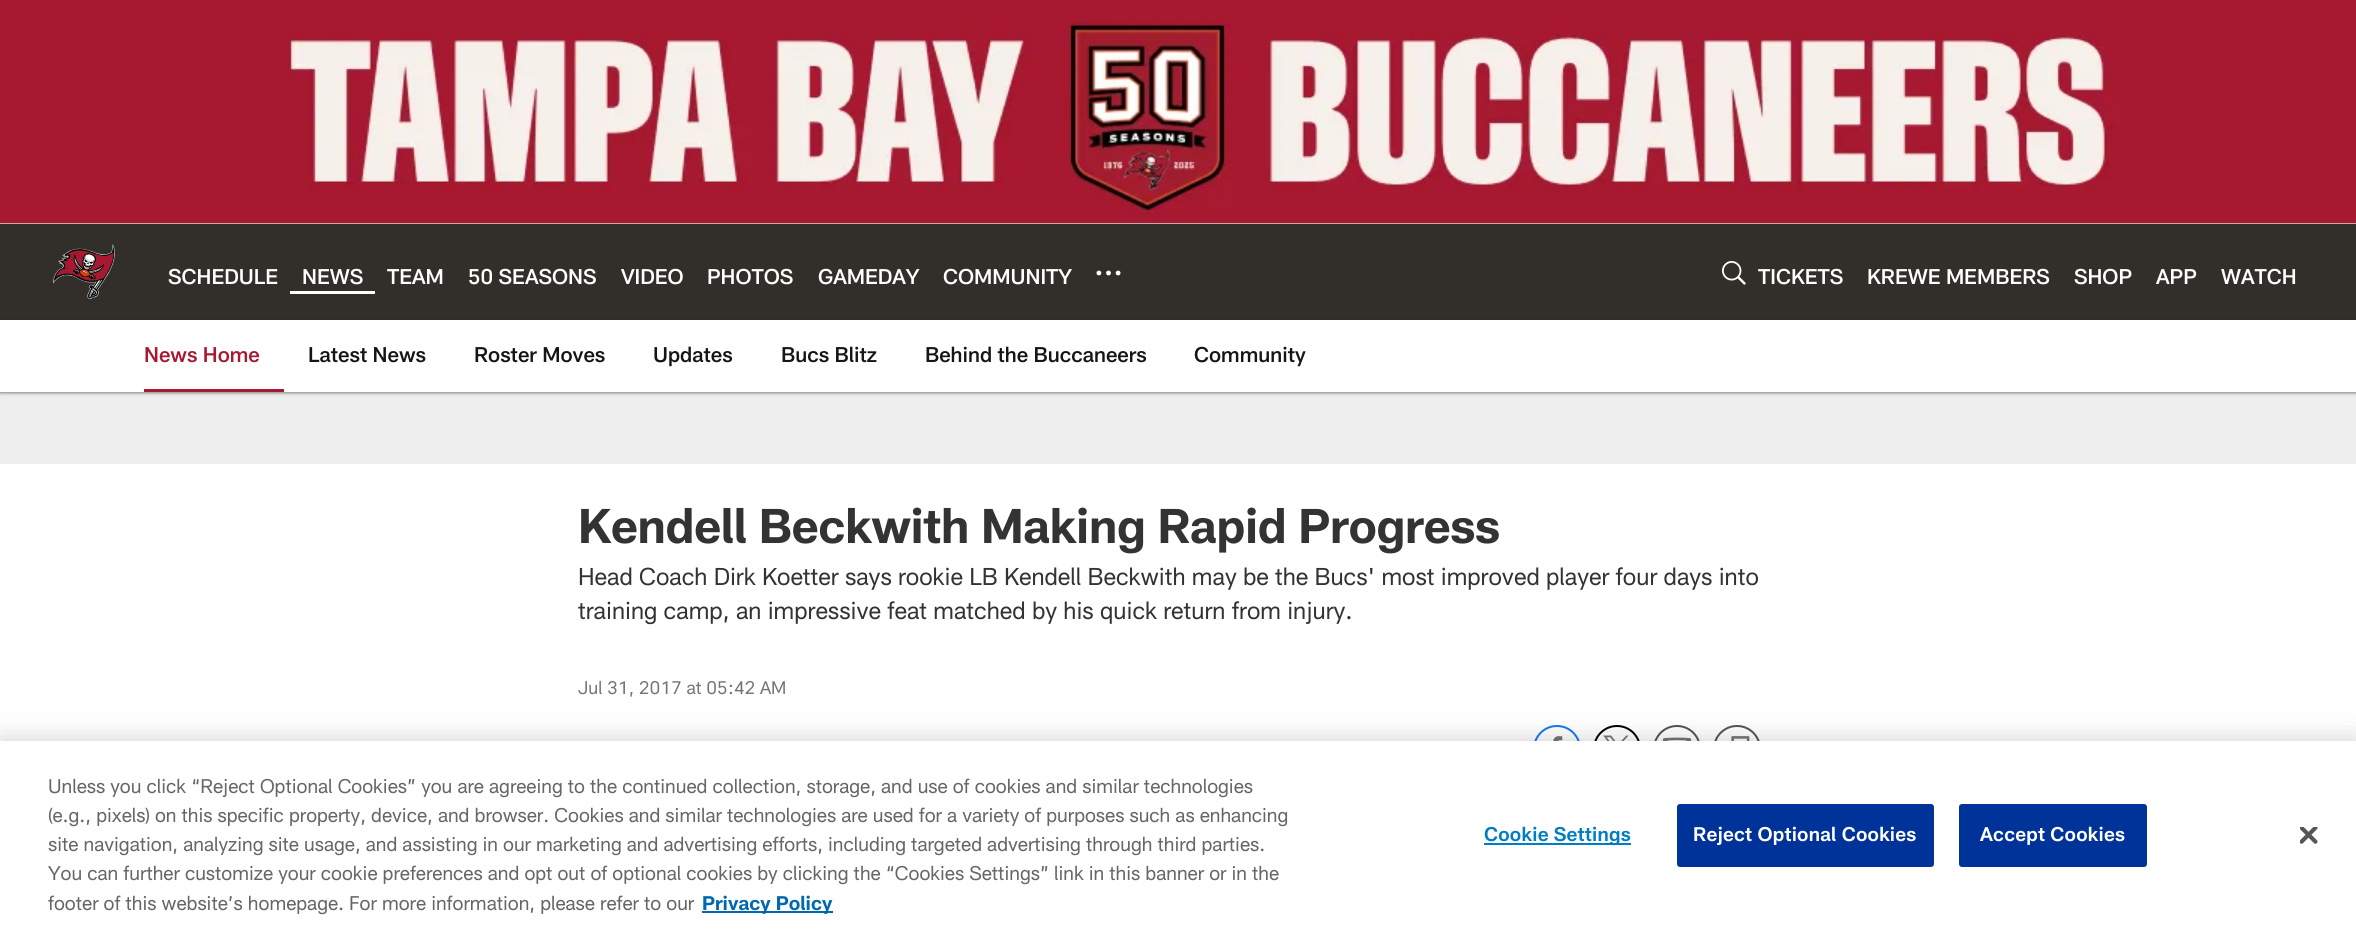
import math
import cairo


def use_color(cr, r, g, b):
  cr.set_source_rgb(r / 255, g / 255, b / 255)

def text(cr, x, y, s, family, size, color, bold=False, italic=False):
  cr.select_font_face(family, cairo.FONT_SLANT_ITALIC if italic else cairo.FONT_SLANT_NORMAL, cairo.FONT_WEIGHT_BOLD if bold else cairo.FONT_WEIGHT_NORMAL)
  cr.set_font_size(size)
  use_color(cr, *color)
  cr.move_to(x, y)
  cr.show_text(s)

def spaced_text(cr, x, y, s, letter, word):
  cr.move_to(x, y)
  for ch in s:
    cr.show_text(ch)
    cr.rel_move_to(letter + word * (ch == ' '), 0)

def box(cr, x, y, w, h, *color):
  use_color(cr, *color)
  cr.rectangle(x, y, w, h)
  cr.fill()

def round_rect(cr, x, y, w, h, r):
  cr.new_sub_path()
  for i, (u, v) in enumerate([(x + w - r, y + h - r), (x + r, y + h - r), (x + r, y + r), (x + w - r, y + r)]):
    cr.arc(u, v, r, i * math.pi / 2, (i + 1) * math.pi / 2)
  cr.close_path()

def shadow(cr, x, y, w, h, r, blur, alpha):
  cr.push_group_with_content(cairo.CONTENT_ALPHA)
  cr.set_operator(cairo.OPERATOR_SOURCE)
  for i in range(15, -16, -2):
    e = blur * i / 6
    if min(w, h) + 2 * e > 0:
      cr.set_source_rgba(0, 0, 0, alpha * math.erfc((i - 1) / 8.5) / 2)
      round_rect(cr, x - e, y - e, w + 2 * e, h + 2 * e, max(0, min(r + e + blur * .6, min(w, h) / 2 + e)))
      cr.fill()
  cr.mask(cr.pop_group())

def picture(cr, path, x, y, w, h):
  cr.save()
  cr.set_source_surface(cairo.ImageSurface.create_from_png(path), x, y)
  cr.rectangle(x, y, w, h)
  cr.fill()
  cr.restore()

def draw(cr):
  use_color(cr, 238, 238, 238)
  cr.paint()
  picture(cr, "img_01.png", 0, 0, 2356, 224)
  use_color(cr, 0, 0, 0)
  shadow(cr, 0, 225, 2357, 96, 0, 1.5, 0.47)
  box(cr, 0, 224, 2356, 96, 50, 47, 43)
  picture(cr, "img_02.png", 53, 244, 62, 55)
  box(cr, 290, 291, 85, 3, 255, 255, 255)
  cr.arc(1118.1, 273, 2.4, 0, 2 * math.pi)
  cr.fill()
  cr.arc(1108.5, 273, 2.4, 0, 2 * math.pi)
  cr.fill()
  cr.arc(1098.9, 273, 2.4, 0, 2 * math.pi)
  cr.fill()
  picture(cr, "img_03.png", 1722, 261, 24, 24)
  use_color(cr, 0, 0, 0)
  shadow(cr, 0, 321, 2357, 72, 0, 1.5, 0.47)
  box(cr, 0, 320, 2356, 72, 255, 255, 255)
  box(cr, 144, 389, 140, 3, 167, 25, 48)
  box(cr, 0, 464, 2356, 277, 255, 255, 255)
  cr.arc(1557, 749, 23, 0, 2 * math.pi)
  use_color(cr, 24, 119, 242)
  cr.stroke()
  picture(cr, "img_04.png", 1553, 736, 10, 5)
  cr.arc(1617, 749, 23, 0, 2 * math.pi)
  use_color(cr, 0, 0, 0)
  cr.stroke()
  picture(cr, "img_05.png", 1603, 735, 26, 6)
  cr.arc(1677, 749, 23, 0, 2 * math.pi)
  use_color(cr, 85, 85, 85)
  cr.stroke()
  picture(cr, "img_06.png", 1662, 737, 30, 4)
  cr.arc(1737, 749, 23, 0, 2 * math.pi)
  cr.stroke()
  picture(cr, "img_07.png", 1731, 736, 19, 5)
  use_color(cr, 0, 0, 0)
  shadow(cr, 0, 741, 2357, 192, 0, 13.5, 0.2)
  box(cr, 0, 741, 2356, 191, 255, 255, 255)
  box(cr, 702, 911, 131, 2, 0, 103, 177)
  box(cr, 1484, 843, 147, 2, 0, 125, 195)
  use_color(cr, 0, 51, 153)
  round_rect(cr, 1678, 805, 255, 61, 2)
  cr.fill_preserve()
  cr.stroke()
  round_rect(cr, 1960, 805, 186, 61, 2)
  cr.fill_preserve()
  cr.stroke()
  picture(cr, "img_08.png", 2300, 827, 18, 17)
  text(cr, 168, 284, "SCHEDULE", "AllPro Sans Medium", 21, (255, 255, 255))
  text(cr, 302, 284, "NEWS", "AllPro Sans Medium", 21, (255, 255, 255))
  text(cr, 387, 284, "TEAM", "AllPro Sans Medium", 21, (255, 255, 255))
  text(cr, 468, 284, "50 SEASONS", "AllPro Sans Medium", 21, (255, 255, 255))
  text(cr, 621, 284, "VIDEO", "AllPro Sans Medium", 21, (255, 255, 255))
  text(cr, 707, 284, "PHOTOS", "AllPro Sans Medium", 21, (255, 255, 255))
  text(cr, 818, 284, "GAMEDAY", "AllPro Sans Medium", 21, (255, 255, 255))
  text(cr, 943, 284, "COMMUNITY", "AllPro Sans Medium", 21, (255, 255, 255))
  text(cr, 1758, 284, "TICKETS", "AllPro Sans Medium", 21, (255, 255, 255))
  text(cr, 1867, 284, "KREWE MEMBERS", "AllPro Sans Medium", 21, (255, 255, 255))
  text(cr, 2074, 284, "SHOP", "AllPro Sans Medium", 21, (255, 255, 255))
  text(cr, 2156, 284, "APP", "AllPro Sans Medium", 21, (255, 255, 255))
  text(cr, 2221, 284, "WATCH", "AllPro Sans Medium", 21, (255, 255, 255))
  text(cr, 144, 362, "News Home", "AllPro Sans Medium", 21, (167, 25, 48))
  text(cr, 308, 362, "Latest News", "AllPro Sans Medium", 21, (21, 21, 21))
  text(cr, 474, 362, "Roster Moves", "AllPro Sans Medium", 21, (21, 21, 21))
  text(cr, 653, 362, "Updates", "AllPro Sans Medium", 21, (21, 21, 21))
  text(cr, 781, 362, "Bucs Blitz", "AllPro Sans Medium", 21, (21, 21, 21))
  text(cr, 925, 362, "Behind the Buccaneers", "AllPro Sans Medium", 21, (21, 21, 21))
  text(cr, 1194, 362, "Community", "AllPro Sans Medium", 21, (21, 21, 21))
  cr.select_font_face("AllPro Sans", cairo.FONT_SLANT_NORMAL, cairo.FONT_WEIGHT_BOLD)
  cr.set_font_size(48)
  use_color(cr, 51, 51, 51)
  spaced_text(cr, 578, 543, "Kendell Beckwith Making Rapid Progress", -0.3, 0)
  text(cr, 578, 585, "Head Coach Dirk Koetter says rookie LB Kendell Beckwith may be the Bucs' most improved player four days into", "AllPro Sans", 24, (51, 51, 51))
  text(cr, 578, 619, "training camp, an impressive feat matched by his quick return from injury.", "AllPro Sans", 24, (51, 51, 51))
  text(cr, 578, 694, "Jul 31, 2017 at 05:42 AM", "AllPro Sans", 18, (117, 117, 117))
  text(cr, 48, 793, "Unless you click “Reject Optional Cookies” you are agreeing to the continued collection, storage, and use of cookies and similar technologies", "AllPro Sans", 19.5, (102, 102, 102))
  text(cr, 48, 822, "(e.g., pixels) on this specific property, device, and browser. Cookies and similar technologies are used for a variety of purposes such as enhancing", "AllPro Sans", 19.5, (102, 102, 102))
  text(cr, 48, 851, "site navigation, analyzing site usage, and assisting in our marketing and advertising efforts, including targeted advertising through third parties.", "AllPro Sans", 19.5, (102, 102, 102))
  text(cr, 48, 880, "You can further customize your cookie preferences and opt out of optional cookies by clicking the “Cookies Settings” link in this banner or in the", "AllPro Sans", 19.5, (102, 102, 102))
  text(cr, 48, 910, "footer of this website’s homepage. For more information, please refer to our", "AllPro Sans", 19.5, (102, 102, 102))
  text(cr, 702, 910, "Privacy Policy", "AllPro Sans", 19.5, (0, 103, 177), bold=True)
  cr.select_font_face("AllPro Sans SemiBold")
  use_color(cr, 0, 125, 195)
  spaced_text(cr, 1484, 841, "Cookie Settings", 0.2, 0)
  use_color(cr, 255, 255, 255)
  spaced_text(cr, 1693, 841, "Reject Optional Cookies", 0.2, 0)
  spaced_text(cr, 1980, 841, "Accept Cookies", 0.2, 0)


surface = cairo.ImageSurface(cairo.FORMAT_RGB24, 2356, 932)
cr = cairo.Context(surface)
options = cairo.FontOptions()
options.set_hint_metrics(cairo.HINT_METRICS_OFF)
options.set_hint_style(cairo.HINT_STYLE_NONE)
cr.set_font_options(options)
cr.set_miter_limit(4)
draw(cr)
surface.write_to_png("out.png")
